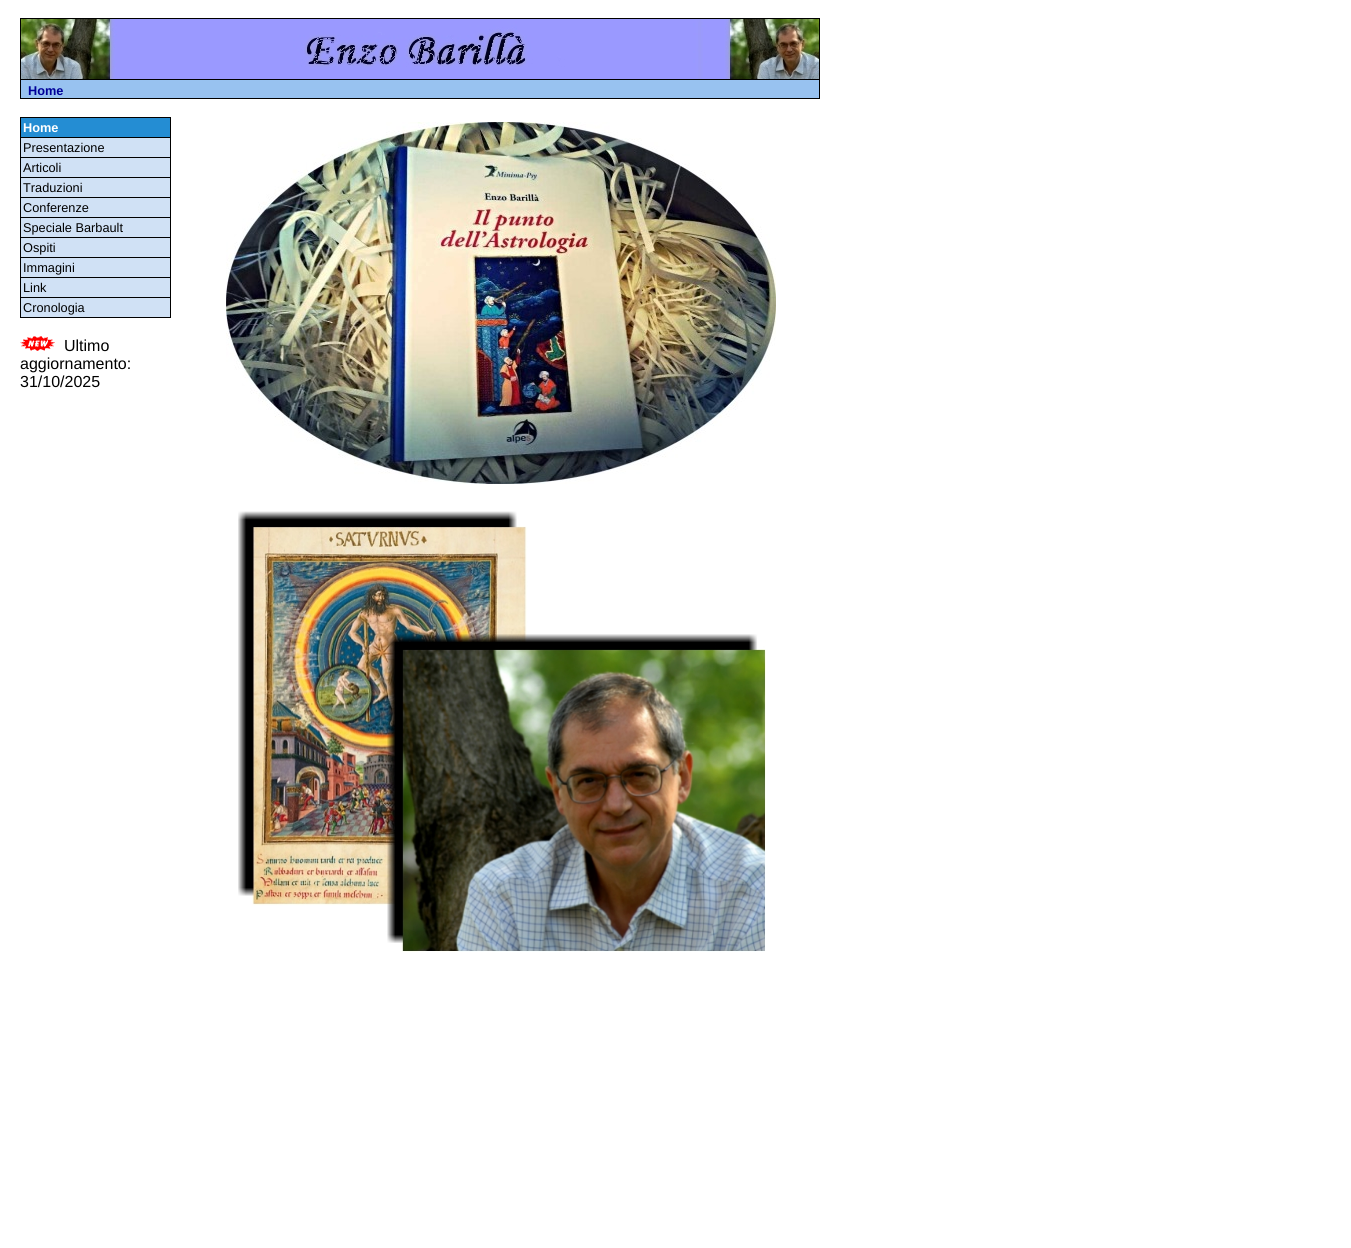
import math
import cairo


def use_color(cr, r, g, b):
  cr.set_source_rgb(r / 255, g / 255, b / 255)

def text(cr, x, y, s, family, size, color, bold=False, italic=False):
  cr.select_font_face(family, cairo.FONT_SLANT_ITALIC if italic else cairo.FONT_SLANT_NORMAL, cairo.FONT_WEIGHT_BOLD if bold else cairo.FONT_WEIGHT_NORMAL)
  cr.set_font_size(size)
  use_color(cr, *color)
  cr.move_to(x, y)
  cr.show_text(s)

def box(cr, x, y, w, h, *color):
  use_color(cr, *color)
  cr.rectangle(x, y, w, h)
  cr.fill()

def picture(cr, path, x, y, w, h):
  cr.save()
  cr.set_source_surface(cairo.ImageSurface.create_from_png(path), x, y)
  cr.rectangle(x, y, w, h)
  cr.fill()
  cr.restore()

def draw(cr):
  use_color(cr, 255, 255, 255)
  cr.paint()
  picture(cr, "img_01.png", 21, 19, 798, 60)
  cr.rectangle(20.5, 18.5, 799, 61)
  use_color(cr, 0, 0, 0)
  cr.set_line_width(1)
  cr.stroke()
  box(cr, 21, 80, 798, 18, 152, 194, 240)
  box(cr, 819, 80, 1, 19, 0, 0, 0)
  box(cr, 20, 98, 800, 1, 0, 0, 0)
  box(cr, 20, 80, 1, 19, 0, 0, 0)
  use_color(cr, 36, 141, 211)
  cr.rectangle(20.5, 117.5, 150, 20)
  cr.fill_preserve()
  use_color(cr, 0, 0, 0)
  cr.stroke()
  box(cr, 21, 138, 149, 19, 208, 225, 245)
  box(cr, 170, 138, 1, 180, 0, 0, 0)
  box(cr, 20, 157, 151, 1, 0, 0, 0)
  box(cr, 20, 138, 1, 20, 0, 0, 0)
  box(cr, 21, 158, 149, 19, 208, 225, 245)
  box(cr, 20, 177, 151, 1, 0, 0, 0)
  box(cr, 20, 158, 1, 20, 0, 0, 0)
  box(cr, 21, 178, 149, 19, 208, 225, 245)
  box(cr, 20, 197, 151, 1, 0, 0, 0)
  box(cr, 20, 178, 1, 20, 0, 0, 0)
  box(cr, 21, 198, 149, 19, 208, 225, 245)
  box(cr, 20, 217, 151, 1, 0, 0, 0)
  box(cr, 20, 198, 1, 20, 0, 0, 0)
  box(cr, 21, 218, 149, 19, 208, 225, 245)
  box(cr, 20, 237, 151, 1, 0, 0, 0)
  box(cr, 20, 218, 1, 20, 0, 0, 0)
  box(cr, 21, 238, 149, 19, 208, 225, 245)
  box(cr, 20, 257, 151, 1, 0, 0, 0)
  box(cr, 20, 238, 1, 20, 0, 0, 0)
  box(cr, 21, 258, 149, 19, 208, 225, 245)
  box(cr, 20, 277, 151, 1, 0, 0, 0)
  box(cr, 20, 258, 1, 20, 0, 0, 0)
  box(cr, 21, 278, 149, 19, 208, 225, 245)
  box(cr, 20, 297, 151, 1, 0, 0, 0)
  box(cr, 20, 278, 1, 20, 0, 0, 0)
  box(cr, 21, 298, 149, 19, 208, 225, 245)
  box(cr, 20, 317, 151, 1, 0, 0, 0)
  box(cr, 20, 298, 1, 20, 0, 0, 0)
  picture(cr, "img_02.png", 20, 336, 35, 15)
  picture(cr, "img_03.png", 226, 122, 550, 362)
  picture(cr, "img_04.png", 238, 511, 528, 441)
  text(cr, 28, 95, "Home", "Liberation Sans", 12.75, (0, 0, 153), bold=True)
  text(cr, 23, 132, "Home", "Liberation Sans", 12.75, (255, 255, 255), bold=True)
  text(cr, 23, 152, "Presentazione", "Liberation Sans", 12.75, (0, 0, 0))
  text(cr, 23, 172, "Articoli", "Liberation Sans", 12.75, (0, 0, 0))
  text(cr, 23, 192, "Traduzioni", "Liberation Sans", 12.75, (0, 0, 0))
  text(cr, 23, 212, "Conferenze", "Liberation Sans", 12.75, (0, 0, 0))
  text(cr, 23, 232, "Speciale Barbault", "Liberation Sans", 12.75, (0, 0, 0))
  text(cr, 23, 252, "Ospiti", "Liberation Sans", 12.75, (0, 0, 0))
  text(cr, 23, 272, "Immagini", "Liberation Sans", 12.75, (0, 0, 0))
  text(cr, 23, 292, "Link", "Liberation Sans", 12.75, (0, 0, 0))
  text(cr, 23, 312, "Cronologia", "Liberation Sans", 12.75, (0, 0, 0))
  text(cr, 64, 351, "Ultimo", "Liberation Sans", 16, (0, 0, 0))
  text(cr, 20, 369, "aggiornamento:", "Liberation Sans", 16, (0, 0, 0))
  text(cr, 20, 387, "31/10/2025", "Liberation Sans", 16, (0, 0, 0))


surface = cairo.ImageSurface(cairo.FORMAT_RGB24, 1351, 1248)
cr = cairo.Context(surface)
options = cairo.FontOptions()
options.set_hint_metrics(cairo.HINT_METRICS_OFF)
options.set_hint_style(cairo.HINT_STYLE_NONE)
cr.set_font_options(options)
cr.set_miter_limit(4)
draw(cr)
surface.write_to_png("out.png")
